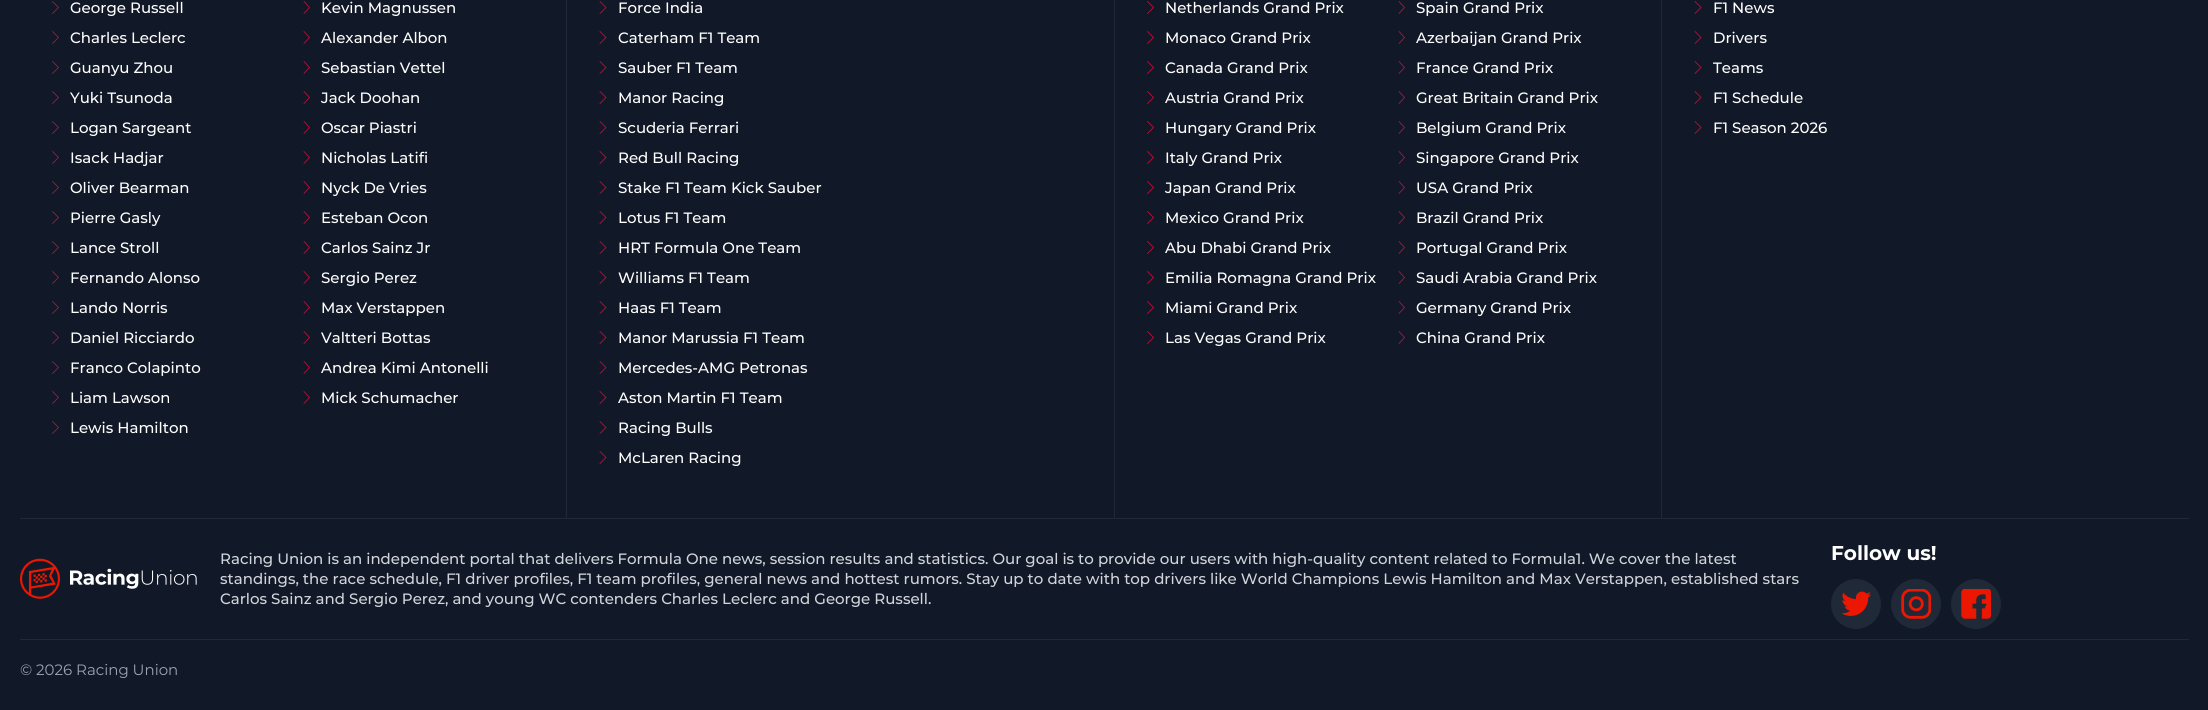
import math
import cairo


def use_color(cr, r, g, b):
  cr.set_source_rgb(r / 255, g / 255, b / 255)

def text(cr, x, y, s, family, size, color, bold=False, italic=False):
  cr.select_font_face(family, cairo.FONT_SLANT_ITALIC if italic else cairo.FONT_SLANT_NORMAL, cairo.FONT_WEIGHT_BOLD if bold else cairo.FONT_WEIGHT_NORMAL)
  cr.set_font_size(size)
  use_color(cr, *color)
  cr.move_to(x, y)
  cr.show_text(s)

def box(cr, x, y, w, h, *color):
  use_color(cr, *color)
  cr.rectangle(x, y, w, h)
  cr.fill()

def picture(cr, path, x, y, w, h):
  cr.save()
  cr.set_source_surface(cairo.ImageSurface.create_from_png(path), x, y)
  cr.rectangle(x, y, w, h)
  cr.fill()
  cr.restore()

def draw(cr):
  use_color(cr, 17, 24, 39)
  cr.paint()
  cr.new_path()
  cr.move_to(52.5, 1.5)
  cr.line_to(58.5, 7.5)
  cr.line_to(52.5, 13.5)
  use_color(cr, 190, 18, 60)
  cr.set_line_width(0.8)
  cr.set_line_cap(cairo.LINE_CAP_ROUND)
  cr.set_line_join(cairo.LINE_JOIN_ROUND)
  cr.stroke()
  cr.new_path()
  cr.move_to(304, 1.5)
  cr.line_to(309.5, 7.5)
  cr.line_to(304, 13.5)
  cr.stroke()
  cr.new_path()
  cr.move_to(52.5, 31.5)
  cr.line_to(58.5, 37.5)
  cr.line_to(52.5, 43.5)
  cr.stroke()
  cr.new_path()
  cr.move_to(304, 31.5)
  cr.line_to(309.5, 37.5)
  cr.line_to(304, 43.5)
  cr.stroke()
  cr.new_path()
  cr.move_to(52.5, 61.5)
  cr.line_to(58.5, 67.5)
  cr.line_to(52.5, 73.5)
  cr.stroke()
  cr.new_path()
  cr.move_to(304, 61.5)
  cr.line_to(309.5, 67.5)
  cr.line_to(304, 73.5)
  cr.stroke()
  cr.new_path()
  cr.move_to(52.5, 91.5)
  cr.line_to(58.5, 97.5)
  cr.line_to(52.5, 103.5)
  cr.stroke()
  cr.new_path()
  cr.move_to(304, 91.5)
  cr.line_to(309.5, 97.5)
  cr.line_to(304, 103.5)
  cr.stroke()
  cr.new_path()
  cr.move_to(52.5, 121.5)
  cr.line_to(58.5, 127.5)
  cr.line_to(52.5, 133.5)
  cr.stroke()
  cr.new_path()
  cr.move_to(304, 121.5)
  cr.line_to(309.5, 127.5)
  cr.line_to(304, 133.5)
  cr.stroke()
  cr.new_path()
  cr.move_to(52.5, 151.5)
  cr.line_to(58.5, 157.5)
  cr.line_to(52.5, 163.5)
  cr.stroke()
  cr.new_path()
  cr.move_to(304, 151.5)
  cr.line_to(309.5, 157.5)
  cr.line_to(304, 163.5)
  cr.stroke()
  cr.new_path()
  cr.move_to(52.5, 181.5)
  cr.line_to(58.5, 187.5)
  cr.line_to(52.5, 193.5)
  cr.stroke()
  cr.new_path()
  cr.move_to(304, 181.5)
  cr.line_to(309.5, 187.5)
  cr.line_to(304, 193.5)
  cr.stroke()
  cr.new_path()
  cr.move_to(52.5, 211.5)
  cr.line_to(58.5, 217.5)
  cr.line_to(52.5, 223.5)
  cr.stroke()
  cr.new_path()
  cr.move_to(304, 211.5)
  cr.line_to(309.5, 217.5)
  cr.line_to(304, 223.5)
  cr.stroke()
  cr.new_path()
  cr.move_to(52.5, 241.5)
  cr.line_to(58.5, 247.5)
  cr.line_to(52.5, 253.5)
  cr.stroke()
  cr.new_path()
  cr.move_to(304, 241.5)
  cr.line_to(309.5, 247.5)
  cr.line_to(304, 253.5)
  cr.stroke()
  cr.new_path()
  cr.move_to(52.5, 271.5)
  cr.line_to(58.5, 277.5)
  cr.line_to(52.5, 283.5)
  cr.stroke()
  cr.new_path()
  cr.move_to(304, 271.5)
  cr.line_to(309.5, 277.5)
  cr.line_to(304, 283.5)
  cr.stroke()
  cr.new_path()
  cr.move_to(52.5, 301.5)
  cr.line_to(58.5, 307.5)
  cr.line_to(52.5, 313.5)
  cr.stroke()
  cr.new_path()
  cr.move_to(304, 301.5)
  cr.line_to(309.5, 307.5)
  cr.line_to(304, 313.5)
  cr.stroke()
  cr.new_path()
  cr.move_to(52.5, 331.5)
  cr.line_to(58.5, 337.5)
  cr.line_to(52.5, 343.5)
  cr.stroke()
  cr.new_path()
  cr.move_to(304, 331.5)
  cr.line_to(309.5, 337.5)
  cr.line_to(304, 343.5)
  cr.stroke()
  cr.new_path()
  cr.move_to(52.5, 361.5)
  cr.line_to(58.5, 367.5)
  cr.line_to(52.5, 373.5)
  cr.stroke()
  cr.new_path()
  cr.move_to(304, 361.5)
  cr.line_to(309.5, 367.5)
  cr.line_to(304, 373.5)
  cr.stroke()
  cr.new_path()
  cr.move_to(52.5, 391.5)
  cr.line_to(58.5, 397.5)
  cr.line_to(52.5, 403.5)
  cr.stroke()
  cr.new_path()
  cr.move_to(304, 391.5)
  cr.line_to(309.5, 397.5)
  cr.line_to(304, 403.5)
  cr.stroke()
  cr.new_path()
  cr.move_to(52.5, 421.5)
  cr.line_to(58.5, 427.5)
  cr.line_to(52.5, 433.5)
  cr.stroke()
  box(cr, 566, 0, 1, 518, 31, 41, 55)
  cr.new_path()
  cr.move_to(600, 1.5)
  cr.line_to(606, 7.5)
  cr.line_to(600, 13.5)
  cr.move_to(600, 31.5)
  cr.line_to(606, 37.5)
  cr.line_to(600, 43.5)
  use_color(cr, 190, 18, 60)
  cr.stroke()
  cr.new_path()
  cr.move_to(600, 61.5)
  cr.line_to(606, 67.5)
  cr.line_to(600, 73.5)
  cr.move_to(600, 91.5)
  cr.line_to(606, 97.5)
  cr.line_to(600, 103.5)
  cr.stroke()
  cr.new_path()
  cr.move_to(600, 121.5)
  cr.line_to(606, 127.5)
  cr.line_to(600, 133.5)
  cr.move_to(600, 151.5)
  cr.line_to(606, 157.5)
  cr.line_to(600, 163.5)
  cr.stroke()
  cr.new_path()
  cr.move_to(600, 181.5)
  cr.line_to(606, 187.5)
  cr.line_to(600, 193.5)
  cr.move_to(600, 211.5)
  cr.line_to(606, 217.5)
  cr.line_to(600, 223.5)
  cr.stroke()
  cr.new_path()
  cr.move_to(600, 241.5)
  cr.line_to(606, 247.5)
  cr.line_to(600, 253.5)
  cr.move_to(600, 271.5)
  cr.line_to(606, 277.5)
  cr.line_to(600, 283.5)
  cr.stroke()
  cr.new_path()
  cr.move_to(600, 301.5)
  cr.line_to(606, 307.5)
  cr.line_to(600, 313.5)
  cr.move_to(600, 331.5)
  cr.line_to(606, 337.5)
  cr.line_to(600, 343.5)
  cr.stroke()
  cr.new_path()
  cr.move_to(600, 361.5)
  cr.line_to(606, 367.5)
  cr.line_to(600, 373.5)
  cr.move_to(600, 391.5)
  cr.line_to(606, 397.5)
  cr.line_to(600, 403.5)
  cr.stroke()
  cr.new_path()
  cr.move_to(600, 421.5)
  cr.line_to(606, 427.5)
  cr.line_to(600, 433.5)
  cr.move_to(600, 451.5)
  cr.line_to(606, 457.5)
  cr.line_to(600, 463.5)
  cr.stroke()
  box(cr, 1114, 0, 1, 518, 31, 41, 55)
  cr.new_path()
  cr.move_to(1147.5, 1.5)
  cr.line_to(1153.5, 7.5)
  cr.line_to(1147.5, 13.5)
  use_color(cr, 190, 18, 60)
  cr.stroke()
  cr.new_path()
  cr.move_to(1399, 1.5)
  cr.line_to(1404.5, 7.5)
  cr.line_to(1399, 13.5)
  cr.stroke()
  cr.new_path()
  cr.move_to(1147.5, 31.5)
  cr.line_to(1153.5, 37.5)
  cr.line_to(1147.5, 43.5)
  cr.stroke()
  cr.new_path()
  cr.move_to(1399, 31.5)
  cr.line_to(1404.5, 37.5)
  cr.line_to(1399, 43.5)
  cr.stroke()
  cr.new_path()
  cr.move_to(1147.5, 61.5)
  cr.line_to(1153.5, 67.5)
  cr.line_to(1147.5, 73.5)
  cr.stroke()
  cr.new_path()
  cr.move_to(1399, 61.5)
  cr.line_to(1404.5, 67.5)
  cr.line_to(1399, 73.5)
  cr.stroke()
  cr.new_path()
  cr.move_to(1147.5, 91.5)
  cr.line_to(1153.5, 97.5)
  cr.line_to(1147.5, 103.5)
  cr.stroke()
  cr.new_path()
  cr.move_to(1399, 91.5)
  cr.line_to(1404.5, 97.5)
  cr.line_to(1399, 103.5)
  cr.stroke()
  cr.new_path()
  cr.move_to(1147.5, 121.5)
  cr.line_to(1153.5, 127.5)
  cr.line_to(1147.5, 133.5)
  cr.stroke()
  cr.new_path()
  cr.move_to(1399, 121.5)
  cr.line_to(1404.5, 127.5)
  cr.line_to(1399, 133.5)
  cr.stroke()
  cr.new_path()
  cr.move_to(1147.5, 151.5)
  cr.line_to(1153.5, 157.5)
  cr.line_to(1147.5, 163.5)
  cr.stroke()
  cr.new_path()
  cr.move_to(1399, 151.5)
  cr.line_to(1404.5, 157.5)
  cr.line_to(1399, 163.5)
  cr.stroke()
  cr.new_path()
  cr.move_to(1147.5, 181.5)
  cr.line_to(1153.5, 187.5)
  cr.line_to(1147.5, 193.5)
  cr.stroke()
  cr.new_path()
  cr.move_to(1399, 181.5)
  cr.line_to(1404.5, 187.5)
  cr.line_to(1399, 193.5)
  cr.stroke()
  cr.new_path()
  cr.move_to(1147.5, 211.5)
  cr.line_to(1153.5, 217.5)
  cr.line_to(1147.5, 223.5)
  cr.stroke()
  cr.new_path()
  cr.move_to(1399, 211.5)
  cr.line_to(1404.5, 217.5)
  cr.line_to(1399, 223.5)
  cr.stroke()
  cr.new_path()
  cr.move_to(1147.5, 241.5)
  cr.line_to(1153.5, 247.5)
  cr.line_to(1147.5, 253.5)
  cr.stroke()
  cr.new_path()
  cr.move_to(1399, 241.5)
  cr.line_to(1404.5, 247.5)
  cr.line_to(1399, 253.5)
  cr.stroke()
  cr.new_path()
  cr.move_to(1147.5, 271.5)
  cr.line_to(1153.5, 277.5)
  cr.line_to(1147.5, 283.5)
  cr.stroke()
  cr.new_path()
  cr.move_to(1399, 271.5)
  cr.line_to(1404.5, 277.5)
  cr.line_to(1399, 283.5)
  cr.stroke()
  cr.new_path()
  cr.move_to(1147.5, 301.5)
  cr.line_to(1153.5, 307.5)
  cr.line_to(1147.5, 313.5)
  cr.stroke()
  cr.new_path()
  cr.move_to(1399, 301.5)
  cr.line_to(1404.5, 307.5)
  cr.line_to(1399, 313.5)
  cr.stroke()
  cr.new_path()
  cr.move_to(1147.5, 331.5)
  cr.line_to(1153.5, 337.5)
  cr.line_to(1147.5, 343.5)
  cr.stroke()
  cr.new_path()
  cr.move_to(1399, 331.5)
  cr.line_to(1404.5, 337.5)
  cr.line_to(1399, 343.5)
  cr.stroke()
  box(cr, 1661, 0, 1, 518, 31, 41, 55)
  cr.new_path()
  cr.move_to(1695, 1.5)
  cr.line_to(1701, 7.5)
  cr.line_to(1695, 13.5)
  cr.move_to(1695, 31.5)
  cr.line_to(1701, 37.5)
  cr.line_to(1695, 43.5)
  use_color(cr, 190, 18, 60)
  cr.stroke()
  cr.new_path()
  cr.move_to(1695, 61.5)
  cr.line_to(1701, 67.5)
  cr.line_to(1695, 73.5)
  cr.move_to(1695, 91.5)
  cr.line_to(1701, 97.5)
  cr.line_to(1695, 103.5)
  cr.stroke()
  cr.new_path()
  cr.move_to(1695, 121.5)
  cr.line_to(1701, 127.5)
  cr.line_to(1695, 133.5)
  cr.stroke()
  box(cr, 20, 518, 2169, 1, 31, 41, 55)
  picture(cr, "img_01.png", 20, 558, 177, 41)
  cr.arc(1856, 604, 25, 0, 2 * math.pi)
  cr.fill()
  picture(cr, "img_02.png", 1841, 591, 30, 25)
  cr.arc(1916, 604, 25, 0, 2 * math.pi)
  cr.fill()
  picture(cr, "img_03.png", 1901, 589, 30, 30)
  cr.arc(1976, 604, 25, 0, 2 * math.pi)
  cr.fill()
  picture(cr, "img_04.png", 1961, 589, 30, 30)
  box(cr, 20, 639, 2169, 1, 31, 41, 55)
  text(cr, 70, 13, "George Russell", "Montserrat Medium", 15, (255, 255, 255))
  text(cr, 321, 13, "Kevin Magnussen", "Montserrat Medium", 15, (255, 255, 255))
  text(cr, 70, 43, "Charles Leclerc", "Montserrat Medium", 15, (255, 255, 255))
  text(cr, 321, 43, "Alexander Albon", "Montserrat Medium", 15, (255, 255, 255))
  text(cr, 70, 73, "Guanyu Zhou", "Montserrat Medium", 15, (255, 255, 255))
  text(cr, 321, 73, "Sebastian Vettel", "Montserrat Medium", 15, (255, 255, 255))
  text(cr, 70, 103, "Yuki Tsunoda", "Montserrat Medium", 15, (255, 255, 255))
  text(cr, 321, 103, "Jack Doohan", "Montserrat Medium", 15, (255, 255, 255))
  text(cr, 70, 133, "Logan Sargeant", "Montserrat Medium", 15, (255, 255, 255))
  text(cr, 321, 133, "Oscar Piastri", "Montserrat Medium", 15, (255, 255, 255))
  text(cr, 70, 163, "Isack Hadjar", "Montserrat Medium", 15, (255, 255, 255))
  text(cr, 321, 163, "Nicholas Latifi", "Montserrat Medium", 15, (255, 255, 255))
  text(cr, 70, 193, "Oliver Bearman", "Montserrat Medium", 15, (255, 255, 255))
  text(cr, 321, 193, "Nyck De Vries", "Montserrat Medium", 15, (255, 255, 255))
  text(cr, 70, 223, "Pierre Gasly", "Montserrat Medium", 15, (255, 255, 255))
  text(cr, 321, 223, "Esteban Ocon", "Montserrat Medium", 15, (255, 255, 255))
  text(cr, 70, 253, "Lance Stroll", "Montserrat Medium", 15, (255, 255, 255))
  text(cr, 321, 253, "Carlos Sainz Jr", "Montserrat Medium", 15, (255, 255, 255))
  text(cr, 70, 283, "Fernando Alonso", "Montserrat Medium", 15, (255, 255, 255))
  text(cr, 321, 283, "Sergio Perez", "Montserrat Medium", 15, (255, 255, 255))
  text(cr, 70, 313, "Lando Norris", "Montserrat Medium", 15, (255, 255, 255))
  text(cr, 321, 313, "Max Verstappen", "Montserrat Medium", 15, (255, 255, 255))
  text(cr, 70, 343, "Daniel Ricciardo", "Montserrat Medium", 15, (255, 255, 255))
  text(cr, 321, 343, "Valtteri Bottas", "Montserrat Medium", 15, (255, 255, 255))
  text(cr, 70, 373, "Franco Colapinto", "Montserrat Medium", 15, (255, 255, 255))
  text(cr, 321, 373, "Andrea Kimi Antonelli", "Montserrat Medium", 15, (255, 255, 255))
  text(cr, 70, 403, "Liam Lawson", "Montserrat Medium", 15, (255, 255, 255))
  text(cr, 321, 403, "Mick Schumacher", "Montserrat Medium", 15, (255, 255, 255))
  text(cr, 70, 433, "Lewis Hamilton", "Montserrat Medium", 15, (255, 255, 255))
  text(cr, 618, 13, "Force India", "Montserrat Medium", 15, (255, 255, 255))
  text(cr, 618, 43, "Caterham F1 Team", "Montserrat Medium", 15, (255, 255, 255))
  text(cr, 618, 73, "Sauber F1 Team", "Montserrat Medium", 15, (255, 255, 255))
  text(cr, 618, 103, "Manor Racing", "Montserrat Medium", 15, (255, 255, 255))
  text(cr, 618, 133, "Scuderia Ferrari", "Montserrat Medium", 15, (255, 255, 255))
  text(cr, 618, 163, "Red Bull Racing", "Montserrat Medium", 15, (255, 255, 255))
  text(cr, 618, 193, "Stake F1 Team Kick Sauber", "Montserrat Medium", 15, (255, 255, 255))
  text(cr, 618, 223, "Lotus F1 Team", "Montserrat Medium", 15, (255, 255, 255))
  text(cr, 618, 253, "HRT Formula One Team", "Montserrat Medium", 15, (255, 255, 255))
  text(cr, 618, 283, "Williams F1 Team", "Montserrat Medium", 15, (255, 255, 255))
  text(cr, 618, 313, "Haas F1 Team", "Montserrat Medium", 15, (255, 255, 255))
  text(cr, 618, 343, "Manor Marussia F1 Team", "Montserrat Medium", 15, (255, 255, 255))
  text(cr, 618, 373, "Mercedes-AMG Petronas", "Montserrat Medium", 15, (255, 255, 255))
  text(cr, 618, 403, "Aston Martin F1 Team", "Montserrat Medium", 15, (255, 255, 255))
  text(cr, 618, 433, "Racing Bulls", "Montserrat Medium", 15, (255, 255, 255))
  text(cr, 618, 463, "McLaren Racing", "Montserrat Medium", 15, (255, 255, 255))
  text(cr, 1165, 13, "Netherlands Grand Prix", "Montserrat Medium", 15, (255, 255, 255))
  text(cr, 1416, 13, "Spain Grand Prix", "Montserrat Medium", 15, (255, 255, 255))
  text(cr, 1165, 43, "Monaco Grand Prix", "Montserrat Medium", 15, (255, 255, 255))
  text(cr, 1416, 43, "Azerbaijan Grand Prix", "Montserrat Medium", 15, (255, 255, 255))
  text(cr, 1165, 73, "Canada Grand Prix", "Montserrat Medium", 15, (255, 255, 255))
  text(cr, 1416, 73, "France Grand Prix", "Montserrat Medium", 15, (255, 255, 255))
  text(cr, 1165, 103, "Austria Grand Prix", "Montserrat Medium", 15, (255, 255, 255))
  text(cr, 1416, 103, "Great Britain Grand Prix", "Montserrat Medium", 15, (255, 255, 255))
  text(cr, 1165, 133, "Hungary Grand Prix", "Montserrat Medium", 15, (255, 255, 255))
  text(cr, 1416, 133, "Belgium Grand Prix", "Montserrat Medium", 15, (255, 255, 255))
  text(cr, 1165, 163, "Italy Grand Prix", "Montserrat Medium", 15, (255, 255, 255))
  text(cr, 1416, 163, "Singapore Grand Prix", "Montserrat Medium", 15, (255, 255, 255))
  text(cr, 1165, 193, "Japan Grand Prix", "Montserrat Medium", 15, (255, 255, 255))
  text(cr, 1416, 193, "USA Grand Prix", "Montserrat Medium", 15, (255, 255, 255))
  text(cr, 1165, 223, "Mexico Grand Prix", "Montserrat Medium", 15, (255, 255, 255))
  text(cr, 1416, 223, "Brazil Grand Prix", "Montserrat Medium", 15, (255, 255, 255))
  text(cr, 1165, 253, "Abu Dhabi Grand Prix", "Montserrat Medium", 15, (255, 255, 255))
  text(cr, 1416, 253, "Portugal Grand Prix", "Montserrat Medium", 15, (255, 255, 255))
  text(cr, 1165, 283, "Emilia Romagna Grand Prix", "Montserrat Medium", 15, (255, 255, 255))
  text(cr, 1416, 283, "Saudi Arabia Grand Prix", "Montserrat Medium", 15, (255, 255, 255))
  text(cr, 1165, 313, "Miami Grand Prix", "Montserrat Medium", 15, (255, 255, 255))
  text(cr, 1416, 313, "Germany Grand Prix", "Montserrat Medium", 15, (255, 255, 255))
  text(cr, 1165, 343, "Las Vegas Grand Prix", "Montserrat Medium", 15, (255, 255, 255))
  text(cr, 1416, 343, "China Grand Prix", "Montserrat Medium", 15, (255, 255, 255))
  text(cr, 1713, 13, "F1 News", "Montserrat Medium", 15, (255, 255, 255))
  text(cr, 1713, 43, "Drivers", "Montserrat Medium", 15, (255, 255, 255))
  text(cr, 1713, 73, "Teams", "Montserrat Medium", 15, (255, 255, 255))
  text(cr, 1713, 103, "F1 Schedule", "Montserrat Medium", 15, (255, 255, 255))
  text(cr, 1713, 133, "F1 Season 2026", "Montserrat Medium", 15, (255, 255, 255))
  text(cr, 220, 564, "Racing Union is an independent portal that delivers Formula One news, session results and statistics. Our goal is to provide our users with high-quality content related to Formula1. We cover the latest", "Montserrat Medium", 15, (209, 213, 219))
  text(cr, 220, 584, "standings, the race schedule, F1 driver profiles, F1 team profiles, general news and hottest rumors. Stay up to date with top drivers like World Champions Lewis Hamilton and Max Verstappen, established stars", "Montserrat Medium", 15, (209, 213, 219))
  text(cr, 220, 604, "Carlos Sainz and Sergio Perez, and young WC contenders Charles Leclerc and George Russell.", "Montserrat Medium", 15, (209, 213, 219))
  text(cr, 1831, 560, "Follow us!", "Montserrat", 20, (255, 255, 255), bold=True)
  text(cr, 20, 675, "© 2026 Racing Union", "Montserrat", 15, (156, 163, 175))


surface = cairo.ImageSurface(cairo.FORMAT_RGB24, 2208, 710)
cr = cairo.Context(surface)
options = cairo.FontOptions()
options.set_hint_metrics(cairo.HINT_METRICS_OFF)
options.set_hint_style(cairo.HINT_STYLE_NONE)
cr.set_font_options(options)
cr.set_miter_limit(4)
draw(cr)
surface.write_to_png("out.png")
